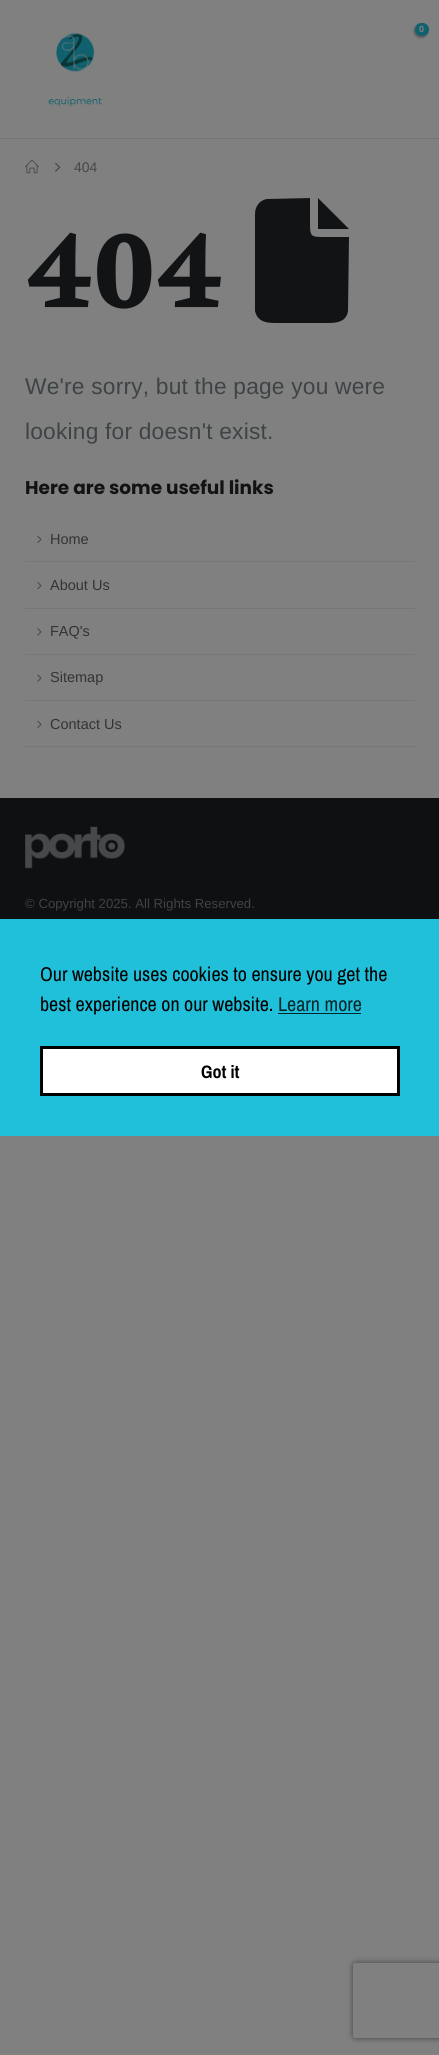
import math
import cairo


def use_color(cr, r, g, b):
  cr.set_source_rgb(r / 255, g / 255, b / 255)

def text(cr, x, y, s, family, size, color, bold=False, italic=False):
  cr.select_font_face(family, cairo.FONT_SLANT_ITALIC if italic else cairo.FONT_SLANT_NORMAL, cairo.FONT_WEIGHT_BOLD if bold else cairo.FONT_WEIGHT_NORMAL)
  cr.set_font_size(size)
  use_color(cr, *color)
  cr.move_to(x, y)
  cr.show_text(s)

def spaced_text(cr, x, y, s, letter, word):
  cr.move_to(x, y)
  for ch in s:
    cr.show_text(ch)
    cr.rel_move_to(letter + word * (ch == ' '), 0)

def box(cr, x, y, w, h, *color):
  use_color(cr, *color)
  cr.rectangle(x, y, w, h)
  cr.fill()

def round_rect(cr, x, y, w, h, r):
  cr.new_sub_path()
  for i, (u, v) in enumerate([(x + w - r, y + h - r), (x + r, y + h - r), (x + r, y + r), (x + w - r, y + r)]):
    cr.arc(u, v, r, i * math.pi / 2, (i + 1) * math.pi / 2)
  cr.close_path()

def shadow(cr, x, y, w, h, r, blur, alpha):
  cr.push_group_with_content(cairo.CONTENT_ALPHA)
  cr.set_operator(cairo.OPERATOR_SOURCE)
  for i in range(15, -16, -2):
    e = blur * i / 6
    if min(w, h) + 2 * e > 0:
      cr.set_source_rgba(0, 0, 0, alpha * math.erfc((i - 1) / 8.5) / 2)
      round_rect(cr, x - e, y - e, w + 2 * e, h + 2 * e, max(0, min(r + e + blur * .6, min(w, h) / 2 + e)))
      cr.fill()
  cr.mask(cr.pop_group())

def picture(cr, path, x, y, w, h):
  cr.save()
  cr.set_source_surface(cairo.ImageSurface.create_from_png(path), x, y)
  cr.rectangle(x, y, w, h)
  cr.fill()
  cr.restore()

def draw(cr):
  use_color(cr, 128, 128, 128)
  cr.paint()
  box(cr, 0, 138, 439, 1, 116, 116, 116)
  use_color(cr, 0, 0, 0)
  shadow(cr, 414, 24, 14, 14, 7, 1, 0.3)
  use_color(cr, 16, 96, 109)
  round_rect(cr, 415, 23, 14, 13, 6.5)
  cr.fill()
  picture(cr, "img_01.png", 48, 32, 54, 75)
  picture(cr, "img_02.png", 25, 159, 14, 15)
  picture(cr, "img_03.png", 55, 162, 6, 10)
  use_color(cr, 17, 19, 21)
  cr.new_path()
  cr.move_to(255, 214)
  cr.curve_to(255, 206, 260, 200, 267, 199)
  cr.line_to(310, 198)
  cr.line_to(310, 224)
  cr.curve_to(310, 236, 311, 237, 323, 237)
  cr.line_to(349, 237)
  cr.line_to(348, 311)
  cr.curve_to(346, 324, 333, 323, 323, 323)
  cr.line_to(281, 323)
  cr.curve_to(270, 323, 258, 324, 255, 311)
  cr.close_path()
  cr.move_to(349, 229)
  cr.line_to(318, 229)
  cr.line_to(318, 198)
  cr.close_path()
  cr.fill()
  box(cr, 25, 561, 390, 1, 118, 118, 118)
  picture(cr, "img_04.png", 37, 535, 5, 8)
  box(cr, 25, 608, 390, 1, 118, 118, 118)
  picture(cr, "img_05.png", 37, 582, 5, 8)
  box(cr, 25, 654, 390, 1, 118, 118, 118)
  picture(cr, "img_06.png", 37, 628, 5, 8)
  box(cr, 25, 700, 390, 1, 118, 118, 118)
  picture(cr, "img_07.png", 37, 674, 5, 8)
  box(cr, 25, 746, 390, 1, 118, 118, 118)
  picture(cr, "img_04.png", 37, 720, 5, 8)
  box(cr, 0, 798, 439, 121, 14, 16, 18)
  picture(cr, "img_08.png", 25, 826, 100, 43)
  box(cr, 0, 919, 439, 217, 32, 192, 218)
  box(cr, 278, 1013, 83, 1, 6, 38, 44)
  use_color(cr, 255, 255, 255)
  cr.rectangle(41.5, 1047.5, 357, 47)
  cr.fill_preserve()
  use_color(cr, 0, 0, 0)
  cr.set_line_width(3)
  cr.stroke()
  cr.save()
  cr.set_fill_rule(cairo.FILL_RULE_EVEN_ODD)
  cr.new_path()
  cr.move_to(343, 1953)
  cr.line_to(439, 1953)
  cr.line_to(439, 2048)
  cr.line_to(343, 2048)
  cr.close_path()
  cr.move_to(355.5, 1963)
  cr.line_to(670.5, 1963)
  cr.curve_to(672, 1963, 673, 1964, 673, 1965.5)
  cr.line_to(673, 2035.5)
  cr.curve_to(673, 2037, 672, 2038, 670.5, 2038)
  cr.line_to(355.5, 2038)
  cr.curve_to(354, 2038, 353, 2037, 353, 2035.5)
  cr.line_to(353, 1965.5)
  cr.curve_to(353, 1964, 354, 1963, 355.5, 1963)
  cr.close_path()
  cr.clip()
  use_color(cr, 64, 64, 64)
  shadow(cr, 353, 1963, 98, 75, 2.5, 3, 1)
  cr.restore()
  text(cr, 419, 32, "0", "Liberation Sans", 9, (128, 128, 128), bold=True)
  text(cr, 74, 172, "404", "Liberation Sans", 14, (71, 71, 71))
  text(cr, 25, 307, "404", "Neuton", 125, (17, 19, 21), bold=True)
  cr.select_font_face("Liberation Sans")
  cr.set_font_size(22.75)
  use_color(cr, 62, 67, 69)
  spaced_text(cr, 25, 394, "We're sorry, but the page you were", 0.2, 0)
  spaced_text(cr, 25, 439, "looking for doesn't exist.", 0.2, 0)
  text(cr, 25, 494, "Here are some useful links", "Poppins", 18.5, (17, 19, 21), bold=True)
  text(cr, 50, 544, "Home", "Liberation Sans", 14.5, (51, 51, 51))
  text(cr, 50, 590, "About Us", "Liberation Sans", 14.5, (51, 51, 51))
  text(cr, 50, 636, "FAQ's", "Liberation Sans", 14.5, (51, 51, 51))
  text(cr, 50, 682, "Sitemap", "Liberation Sans", 14.5, (51, 51, 51))
  text(cr, 50, 729, "Contact Us", "Liberation Sans", 14.5, (51, 51, 51))
  text(cr, 25, 908, "© Copyright 2025. All Rights Reserved.", "Liberation Sans", 13.2, (62, 67, 69))
  text(cr, 40, 981, "Our website uses cookies to ensure you get the", "Archivo Narrow", 20, (0, 0, 0))
  text(cr, 40, 1011, "best experience on our website.", "Archivo Narrow", 20, (0, 0, 0))
  text(cr, 278, 1011, "Learn more", "Archivo Narrow", 20, (6, 38, 44))
  text(cr, 201, 1078, "Got it", "Archivo Narrow", 18, (0, 0, 0), bold=True)


surface = cairo.ImageSurface(cairo.FORMAT_RGB24, 439, 2055)
cr = cairo.Context(surface)
options = cairo.FontOptions()
options.set_hint_metrics(cairo.HINT_METRICS_OFF)
options.set_hint_style(cairo.HINT_STYLE_NONE)
cr.set_font_options(options)
cr.set_miter_limit(4)
draw(cr)
surface.write_to_png("out.png")
